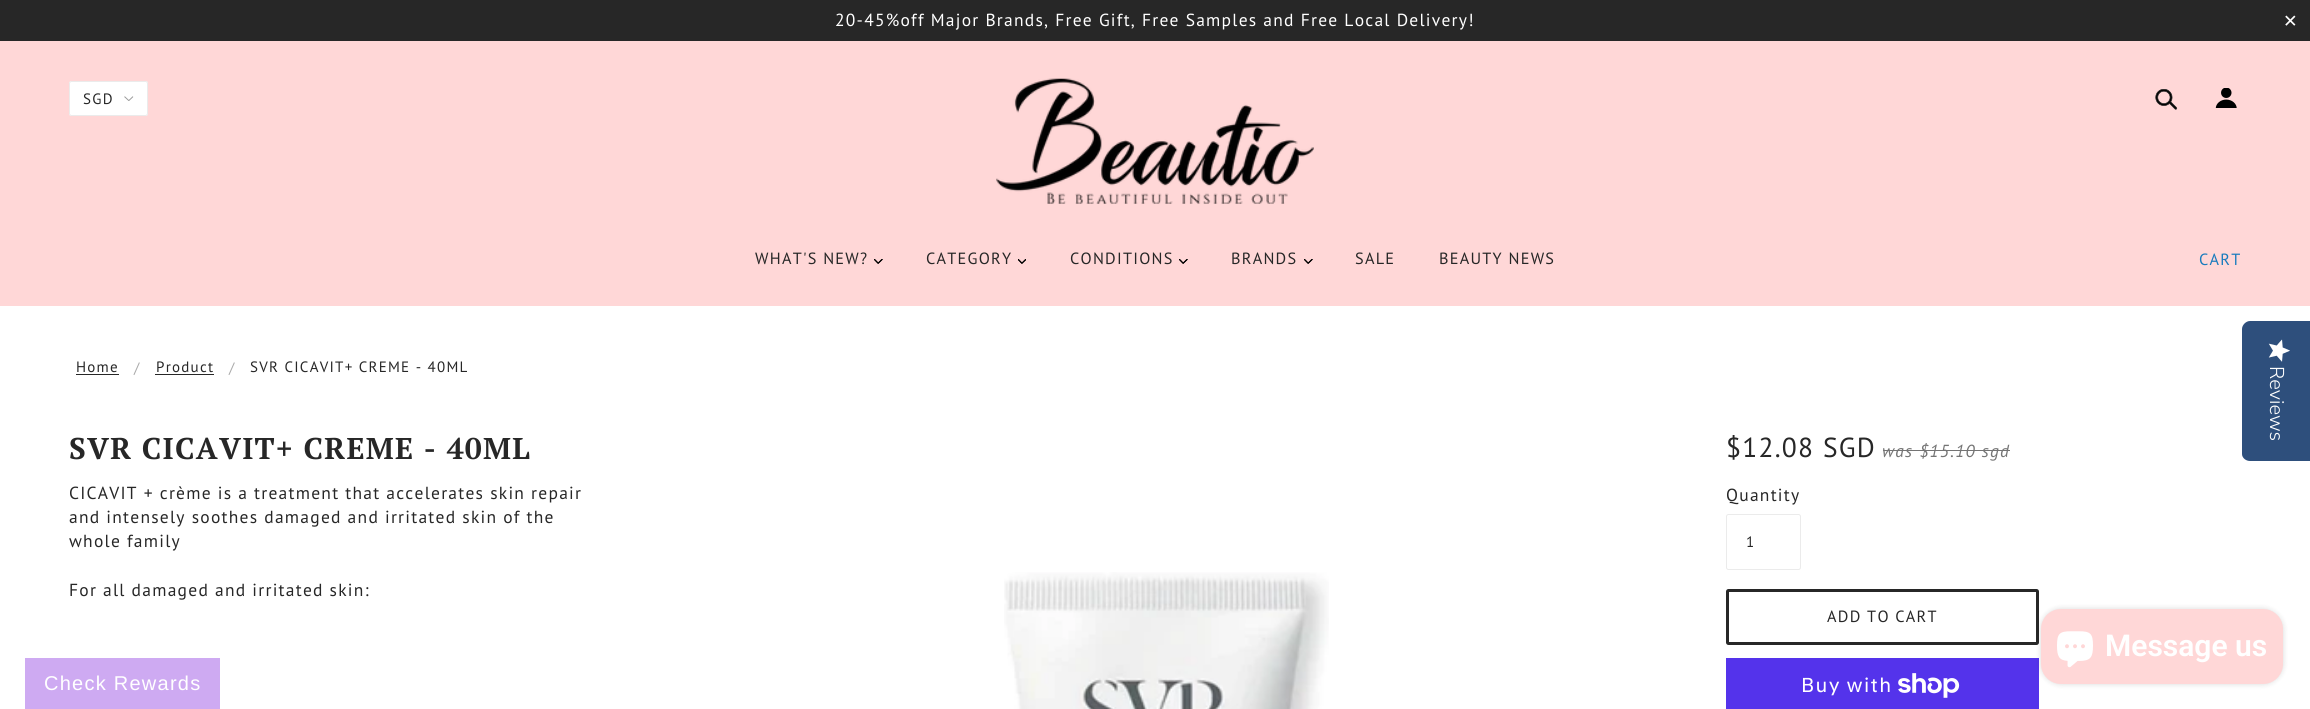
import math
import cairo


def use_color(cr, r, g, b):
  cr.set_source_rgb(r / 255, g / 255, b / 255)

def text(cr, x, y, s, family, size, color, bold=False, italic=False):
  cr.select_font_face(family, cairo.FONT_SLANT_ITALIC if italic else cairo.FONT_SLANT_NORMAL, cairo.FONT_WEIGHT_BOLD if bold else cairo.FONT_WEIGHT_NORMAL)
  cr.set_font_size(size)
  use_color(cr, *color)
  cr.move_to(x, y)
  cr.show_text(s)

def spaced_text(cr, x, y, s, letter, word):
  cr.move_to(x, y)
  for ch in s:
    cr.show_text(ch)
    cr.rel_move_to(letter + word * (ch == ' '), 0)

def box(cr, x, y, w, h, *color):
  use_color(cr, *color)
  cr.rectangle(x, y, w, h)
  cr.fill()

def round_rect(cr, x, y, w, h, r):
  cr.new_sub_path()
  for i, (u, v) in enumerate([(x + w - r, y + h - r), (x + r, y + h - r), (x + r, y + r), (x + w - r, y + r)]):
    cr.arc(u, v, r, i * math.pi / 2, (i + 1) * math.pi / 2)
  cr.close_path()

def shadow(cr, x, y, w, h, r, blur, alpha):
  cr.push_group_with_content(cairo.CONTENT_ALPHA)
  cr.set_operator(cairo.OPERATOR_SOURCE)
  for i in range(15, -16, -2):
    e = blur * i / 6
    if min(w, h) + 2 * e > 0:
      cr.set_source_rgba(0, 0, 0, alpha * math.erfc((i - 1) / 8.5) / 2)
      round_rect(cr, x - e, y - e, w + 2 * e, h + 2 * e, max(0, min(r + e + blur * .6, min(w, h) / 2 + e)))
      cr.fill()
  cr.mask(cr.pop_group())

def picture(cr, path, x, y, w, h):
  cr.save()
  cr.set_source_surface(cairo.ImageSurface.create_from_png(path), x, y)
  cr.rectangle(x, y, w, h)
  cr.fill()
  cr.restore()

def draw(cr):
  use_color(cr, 255, 255, 255)
  cr.paint()
  box(cr, 0, 0, 2310, 41, 39, 39, 39)
  box(cr, 0, 41, 2310, 265, 255, 215, 215)
  use_color(cr, 255, 255, 255)
  round_rect(cr, 69, 81, 79, 35, 2.5)
  cr.fill()
  picture(cr, "img_01.png", 124, 96, 10, 5)
  round_rect(cr, 69.5, 81.5, 78, 34, 2)
  use_color(cr, 235, 235, 235)
  cr.set_line_width(1)
  cr.stroke()
  picture(cr, "img_02.png", 996, 78, 318, 126)
  picture(cr, "img_03.png", 2155, 89, 23, 21)
  picture(cr, "img_04.png", 2215, 88, 22, 20)
  picture(cr, "img_05.png", 874, 259, 9, 5)
  picture(cr, "img_06.png", 1018, 259, 8, 5)
  picture(cr, "img_05.png", 1179, 259, 9, 5)
  picture(cr, "img_05.png", 1304, 259, 9, 5)
  box(cr, 76, 374, 43, 1, 39, 39, 39)
  box(cr, 155, 374, 59, 1, 39, 39, 39)
  box(cr, 1883, 450, 127, 1, 116, 116, 116)
  round_rect(cr, 1726.5, 514.5, 74, 55, 2)
  use_color(cr, 235, 235, 235)
  cr.stroke()
  round_rect(cr, 1727.5, 590.5, 310, 53, 1)
  use_color(cr, 39, 39, 39)
  cr.set_line_width(3)
  cr.stroke()
  box(cr, 1726, 658, 313, 51, 84, 51, 235)
  picture(cr, "img_07.png", 1898, 673, 62, 25)
  picture(cr, "img_08.png", 1004, 572, 325, 137)
  use_color(cr, 46, 79, 124)
  cr.new_path()
  cr.move_to(2310, 321)
  cr.line_to(2310, 461)
  cr.line_to(2250, 461)
  cr.curve_to(2246, 461, 2242, 458, 2242, 454)
  cr.line_to(2242, 329)
  cr.curve_to(2242, 325, 2246, 321, 2250, 321)
  cr.close_path()
  cr.fill()
  picture(cr, "img_09.png", 2268, 339, 22, 23)
  use_color(cr, 0, 0, 0)
  shadow(cr, 2041, 609, 242, 75, 20, 3, 0.15)
  use_color(cr, 255, 215, 215)
  round_rect(cr, 2041, 609, 242, 75, 20)
  cr.fill()
  picture(cr, "img_10.png", 2057, 631, 36, 37)
  box(cr, 25, 658, 195, 51, 206, 170, 242)
  cr.select_font_face("PT Sans")
  cr.set_font_size(17.5)
  use_color(cr, 255, 255, 255)
  spaced_text(cr, 835, 26, "20-45%off Major Brands, Free Gift, Free Samples and Free Local Delivery!", 1.25, 0)
  text(cr, 2283, 27, "✕", "DejaVu Sans", 17.5, (255, 255, 255))
  cr.select_font_face("PT Sans")
  cr.set_font_size(15)
  use_color(cr, 39, 39, 39)
  spaced_text(cr, 83, 104, "SGD", 1.25, 0)
  cr.set_font_size(16.25)
  spaced_text(cr, 755, 264, "WHAT'S NEW?", 1.25, 0)
  spaced_text(cr, 926, 264, "CATEGORY", 1.25, 0)
  spaced_text(cr, 1070, 264, "CONDITIONS", 1.25, 0)
  spaced_text(cr, 1231, 264, "BRANDS", 1.25, 0)
  spaced_text(cr, 1355, 264, "SALE", 1.25, 0)
  spaced_text(cr, 1439, 264, "BEAUTY NEWS", 1.25, 0)
  use_color(cr, 25, 123, 189)
  spaced_text(cr, 2199, 265, "CART", 1.25, 0)
  cr.set_font_size(15)
  use_color(cr, 39, 39, 39)
  spaced_text(cr, 76, 372, "Home", 1.25, 0)
  use_color(cr, 170, 170, 170)
  spaced_text(cr, 134, 373, "/", 1.25, 0)
  use_color(cr, 39, 39, 39)
  spaced_text(cr, 156, 372, "Product", 1.25, 0)
  use_color(cr, 170, 170, 170)
  spaced_text(cr, 229, 373, "/", 1.25, 0)
  use_color(cr, 39, 39, 39)
  spaced_text(cr, 250, 372, "SVR CICAVIT+ CREME - 40ML", 1.25, 0)
  cr.select_font_face("PT Serif", cairo.FONT_SLANT_NORMAL, cairo.FONT_WEIGHT_BOLD)
  cr.set_font_size(30)
  spaced_text(cr, 69, 459, "SVR CICAVIT+ CREME - 40ML", 1.25, 0)
  cr.select_font_face("PT Sans")
  cr.set_font_size(27.5)
  spaced_text(cr, 1726, 457, "$12.08 SGD", 1.25, 0)
  cr.select_font_face("PT Sans", cairo.FONT_SLANT_ITALIC)
  cr.set_font_size(17.5)
  use_color(cr, 116, 116, 116)
  spaced_text(cr, 1882, 457, "was $15.10 sgd", 1.25, 0)
  cr.select_font_face("PT Sans")
  use_color(cr, 39, 39, 39)
  spaced_text(cr, 1726, 501, "Quantity", 1.25, 0)
  cr.set_font_size(15)
  spaced_text(cr, 1746, 547, "1", 1, 0)
  cr.set_font_size(16.25)
  spaced_text(cr, 1827, 622, "ADD TO CART", 1.25, 0)
  cr.select_font_face("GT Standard")
  cr.set_font_size(20)
  use_color(cr, 255, 255, 255)
  spaced_text(cr, 1801, 692, "Buy with", 1.25, 0)
  cr.select_font_face("PT Sans")
  cr.set_font_size(17.5)
  use_color(cr, 39, 39, 39)
  spaced_text(cr, 69, 499, "CICAVIT + crème is a treatment that accelerates skin repair", 1.25, 0)
  spaced_text(cr, 69, 523, "and intensely soothes damaged and irritated skin of the", 1.25, 0)
  spaced_text(cr, 69, 547, "whole family", 1.25, 0)
  spaced_text(cr, 69, 596, "For all damaged and irritated skin:", 1.25, 0)
  cr.save()
  cr.translate(2270, 366)
  cr.rotate(90 * math.pi / 180)
  text(cr, 0, 0, "Reviews", "Nunito Sans Light", 20, (255, 255, 255))
  cr.restore()
  text(cr, 2105, 656, "Message us", "Roboto SemiBold", 30, (255, 255, 255))
  cr.select_font_face("Liberation Sans")
  cr.set_font_size(20)
  spaced_text(cr, 44, 690, "Check Rewards", 1.25, 0)


surface = cairo.ImageSurface(cairo.FORMAT_RGB24, 2310, 709)
cr = cairo.Context(surface)
options = cairo.FontOptions()
options.set_hint_metrics(cairo.HINT_METRICS_OFF)
options.set_hint_style(cairo.HINT_STYLE_NONE)
cr.set_font_options(options)
cr.set_miter_limit(4)
draw(cr)
surface.write_to_png("out.png")
